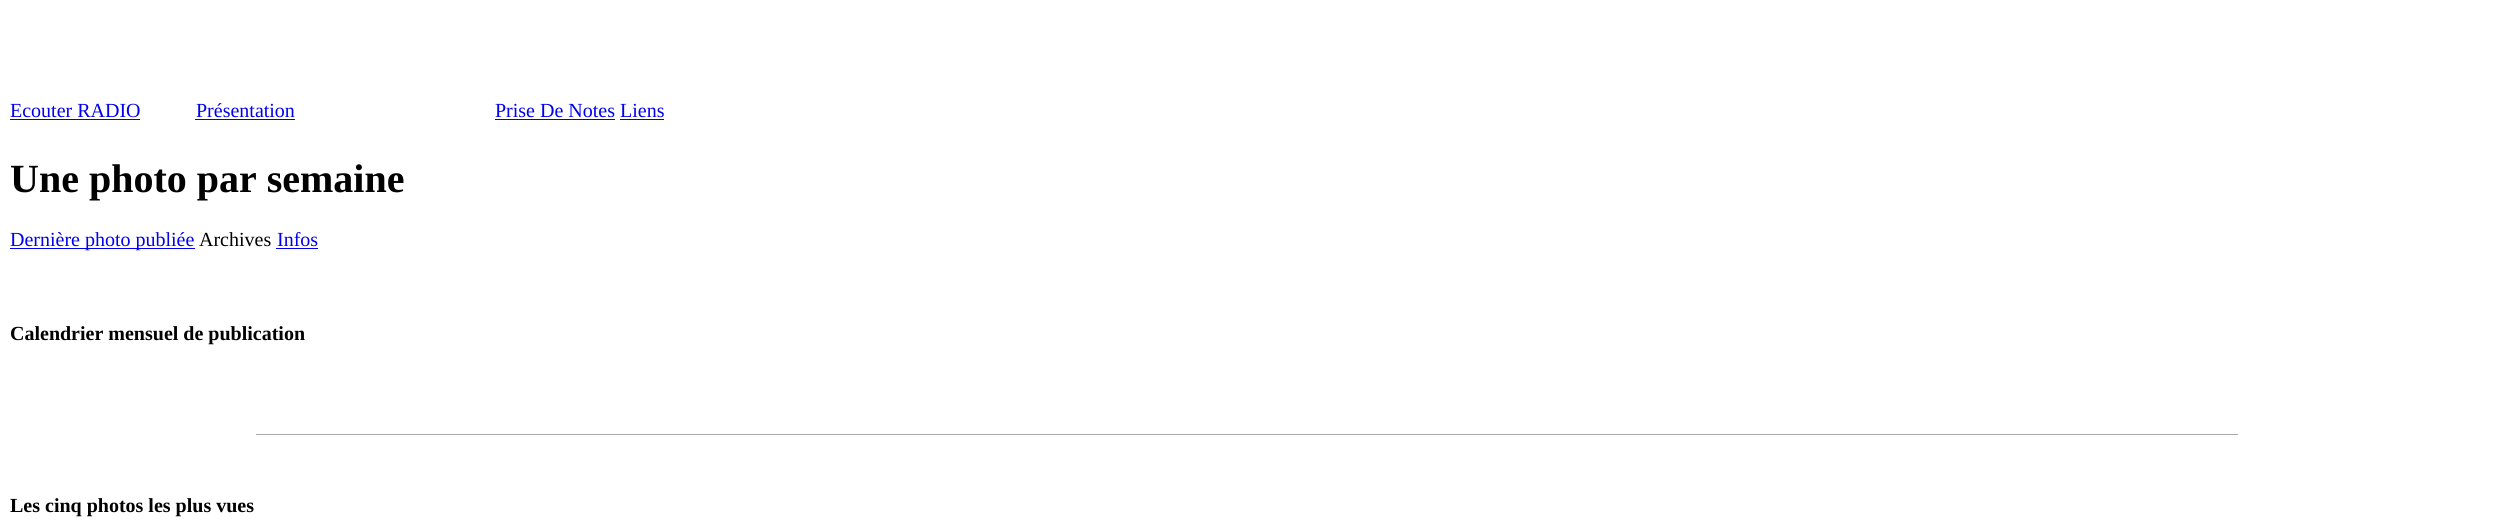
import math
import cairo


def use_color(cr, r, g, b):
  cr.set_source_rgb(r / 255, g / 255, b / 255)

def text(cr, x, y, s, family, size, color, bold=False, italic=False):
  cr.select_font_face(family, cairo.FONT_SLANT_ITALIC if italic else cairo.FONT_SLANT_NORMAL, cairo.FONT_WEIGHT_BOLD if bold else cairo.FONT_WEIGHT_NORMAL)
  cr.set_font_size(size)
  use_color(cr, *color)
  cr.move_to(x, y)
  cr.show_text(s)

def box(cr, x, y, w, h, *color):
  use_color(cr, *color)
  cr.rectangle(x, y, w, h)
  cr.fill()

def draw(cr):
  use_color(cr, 255, 255, 255)
  cr.paint()
  box(cr, 10, 119, 130, 1, 0, 0, 238)
  box(cr, 195, 119, 100, 1, 0, 0, 238)
  box(cr, 495, 119, 120, 1, 0, 0, 238)
  box(cr, 620, 119, 44, 1, 0, 0, 238)
  box(cr, 10, 248, 185, 1, 0, 0, 238)
  box(cr, 276, 248, 42, 1, 0, 0, 238)
  box(cr, 256, 434, 1982, 1, 170, 170, 170)
  text(cr, 10, 117, "Ecouter RADIO", "Liberation Serif", 20, (0, 0, 238))
  text(cr, 196, 117, "Présentation", "Liberation Serif", 20, (0, 0, 238))
  text(cr, 495, 117, "Prise De Notes Liens", "Liberation Serif", 20, (0, 0, 238))
  text(cr, 10, 192, "Une photo par semaine", "Liberation Serif", 40, (0, 0, 0), bold=True)
  text(cr, 10, 246, "Dernière photo publiée", "Liberation Serif", 20, (0, 0, 238))
  text(cr, 199, 246, "Archives", "Liberation Serif", 20, (0, 0, 0))
  text(cr, 277, 246, "Infos", "Liberation Serif", 20, (0, 0, 238))
  text(cr, 10, 340, "Calendrier mensuel de publication", "Liberation Serif", 20, (0, 0, 0), bold=True)
  text(cr, 10, 512, "Les cinq photos les plus vues", "Liberation Serif", 20, (0, 0, 0), bold=True)


surface = cairo.ImageSurface(cairo.FORMAT_RGB24, 2493, 531)
cr = cairo.Context(surface)
options = cairo.FontOptions()
options.set_hint_metrics(cairo.HINT_METRICS_OFF)
options.set_hint_style(cairo.HINT_STYLE_NONE)
cr.set_font_options(options)
cr.set_miter_limit(4)
draw(cr)
surface.write_to_png("out.png")
